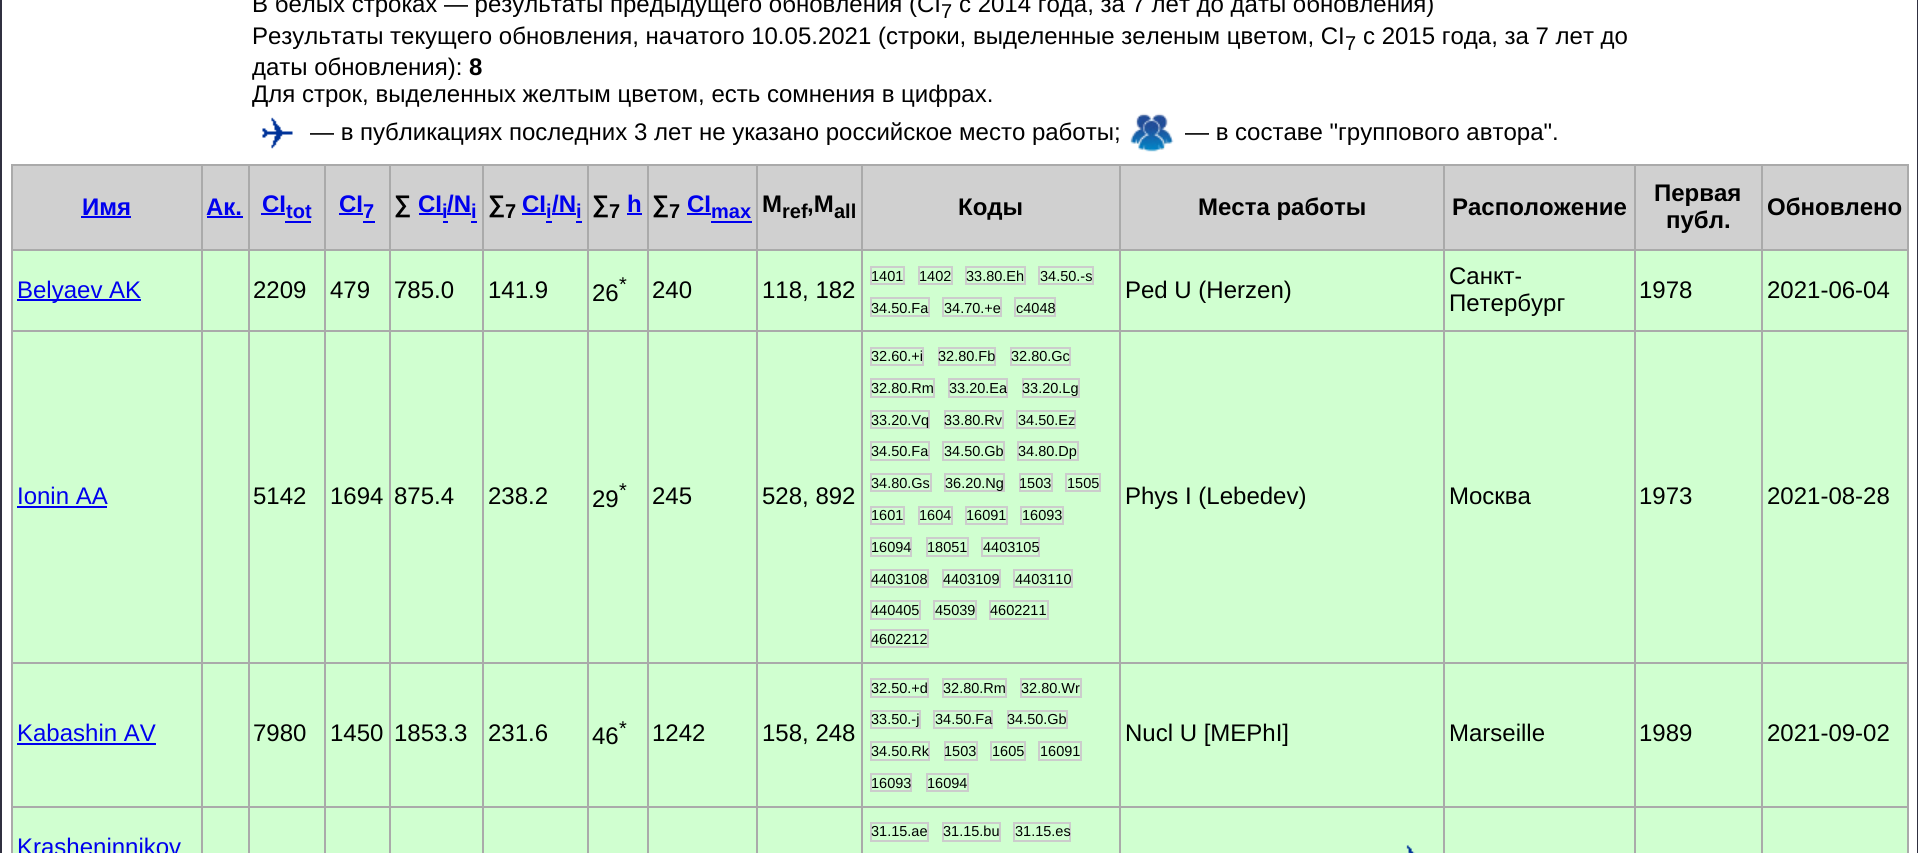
import math
import cairo


def use_color(cr, r, g, b):
  cr.set_source_rgb(r / 255, g / 255, b / 255)

def text(cr, x, y, s, family, size, color, bold=False, italic=False):
  cr.select_font_face(family, cairo.FONT_SLANT_ITALIC if italic else cairo.FONT_SLANT_NORMAL, cairo.FONT_WEIGHT_BOLD if bold else cairo.FONT_WEIGHT_NORMAL)
  cr.set_font_size(size)
  use_color(cr, *color)
  cr.move_to(x, y)
  cr.show_text(s)

def box(cr, x, y, w, h, *color):
  use_color(cr, *color)
  cr.rectangle(x, y, w, h)
  cr.fill()

def picture(cr, path, x, y, w, h):
  cr.save()
  cr.set_source_surface(cairo.ImageSurface.create_from_png(path), x, y)
  cr.rectangle(x, y, w, h)
  cr.fill()
  cr.restore()

def draw(cr):
  use_color(cr, 48, 48, 64)
  cr.paint()
  box(cr, 2, 0, 1915, 853, 255, 255, 255)
  picture(cr, "img_01.png", 262, 117, 31, 32)
  picture(cr, "img_02.png", 1130, 113, 44, 39)
  box(cr, 1907, 164, 2, 689, 170, 170, 170)
  box(cr, 11, 164, 1897, 2, 170, 170, 170)
  box(cr, 11, 164, 2, 87, 170, 170, 170)
  box(cr, 13, 166, 188, 83, 208, 208, 208)
  box(cr, 13, 251, 1894, 79, 208, 255, 208)
  box(cr, 1761, 330, 147, 2, 170, 170, 170)
  box(cr, 13, 332, 1894, 330, 208, 255, 208)
  box(cr, 1761, 662, 147, 2, 170, 170, 170)
  box(cr, 13, 664, 1894, 142, 208, 255, 208)
  box(cr, 1761, 806, 147, 2, 170, 170, 170)
  box(cr, 13, 808, 1894, 45, 208, 255, 208)
  box(cr, 1761, 806, 2, 47, 170, 170, 170)
  box(cr, 1634, 806, 129, 2, 170, 170, 170)
  box(cr, 1761, 662, 2, 145, 170, 170, 170)
  box(cr, 1634, 662, 129, 2, 170, 170, 170)
  box(cr, 1761, 330, 2, 333, 170, 170, 170)
  box(cr, 1634, 330, 129, 2, 170, 170, 170)
  box(cr, 1761, 249, 2, 83, 170, 170, 170)
  box(cr, 1761, 249, 147, 2, 170, 170, 170)
  box(cr, 1761, 164, 2, 87, 170, 170, 170)
  box(cr, 1634, 806, 2, 47, 170, 170, 170)
  box(cr, 1443, 806, 192, 2, 170, 170, 170)
  box(cr, 1634, 662, 2, 145, 170, 170, 170)
  box(cr, 1443, 662, 192, 2, 170, 170, 170)
  box(cr, 1634, 330, 2, 333, 170, 170, 170)
  box(cr, 1443, 330, 192, 2, 170, 170, 170)
  box(cr, 1634, 249, 2, 83, 170, 170, 170)
  box(cr, 1634, 249, 129, 2, 170, 170, 170)
  box(cr, 1634, 164, 2, 87, 170, 170, 170)
  box(cr, 1443, 806, 2, 47, 170, 170, 170)
  box(cr, 1119, 806, 326, 2, 170, 170, 170)
  box(cr, 1443, 662, 2, 145, 170, 170, 170)
  box(cr, 1119, 662, 326, 2, 170, 170, 170)
  box(cr, 1443, 330, 2, 333, 170, 170, 170)
  box(cr, 1119, 330, 326, 2, 170, 170, 170)
  box(cr, 1443, 249, 2, 83, 170, 170, 170)
  box(cr, 1443, 249, 192, 2, 170, 170, 170)
  box(cr, 1443, 164, 2, 87, 170, 170, 170)
  box(cr, 1119, 806, 2, 47, 170, 170, 170)
  box(cr, 861, 806, 260, 2, 170, 170, 170)
  box(cr, 1119, 662, 2, 145, 170, 170, 170)
  box(cr, 861, 662, 260, 2, 170, 170, 170)
  box(cr, 1119, 330, 2, 333, 170, 170, 170)
  box(cr, 861, 330, 260, 2, 170, 170, 170)
  box(cr, 1119, 249, 2, 83, 170, 170, 170)
  box(cr, 1119, 249, 326, 2, 170, 170, 170)
  box(cr, 1119, 164, 2, 87, 170, 170, 170)
  box(cr, 861, 806, 2, 47, 170, 170, 170)
  box(cr, 756, 806, 107, 2, 170, 170, 170)
  box(cr, 861, 662, 2, 145, 170, 170, 170)
  box(cr, 756, 662, 107, 2, 170, 170, 170)
  box(cr, 861, 330, 2, 333, 170, 170, 170)
  box(cr, 756, 330, 107, 2, 170, 170, 170)
  box(cr, 861, 249, 2, 83, 170, 170, 170)
  box(cr, 861, 249, 260, 2, 170, 170, 170)
  box(cr, 861, 164, 2, 87, 170, 170, 170)
  box(cr, 756, 806, 2, 47, 170, 170, 170)
  box(cr, 647, 806, 111, 2, 170, 170, 170)
  box(cr, 756, 662, 2, 145, 170, 170, 170)
  box(cr, 647, 662, 111, 2, 170, 170, 170)
  box(cr, 756, 330, 2, 333, 170, 170, 170)
  box(cr, 647, 330, 111, 2, 170, 170, 170)
  box(cr, 756, 249, 2, 83, 170, 170, 170)
  box(cr, 756, 249, 107, 2, 170, 170, 170)
  box(cr, 756, 164, 2, 87, 170, 170, 170)
  box(cr, 647, 806, 2, 47, 170, 170, 170)
  box(cr, 587, 806, 61, 2, 170, 170, 170)
  box(cr, 647, 662, 2, 145, 170, 170, 170)
  box(cr, 587, 662, 61, 2, 170, 170, 170)
  box(cr, 647, 330, 2, 333, 170, 170, 170)
  box(cr, 587, 330, 61, 2, 170, 170, 170)
  box(cr, 647, 249, 2, 83, 170, 170, 170)
  box(cr, 647, 249, 111, 2, 170, 170, 170)
  box(cr, 647, 164, 2, 87, 170, 170, 170)
  box(cr, 587, 806, 2, 47, 170, 170, 170)
  box(cr, 482, 806, 106, 2, 170, 170, 170)
  box(cr, 587, 662, 2, 145, 170, 170, 170)
  box(cr, 482, 662, 106, 2, 170, 170, 170)
  box(cr, 587, 330, 2, 333, 170, 170, 170)
  box(cr, 482, 330, 106, 2, 170, 170, 170)
  box(cr, 587, 249, 2, 83, 170, 170, 170)
  box(cr, 587, 249, 61, 2, 170, 170, 170)
  box(cr, 587, 164, 2, 87, 170, 170, 170)
  box(cr, 482, 806, 2, 47, 170, 170, 170)
  box(cr, 389, 806, 94, 2, 170, 170, 170)
  box(cr, 482, 662, 2, 145, 170, 170, 170)
  box(cr, 389, 662, 94, 2, 170, 170, 170)
  box(cr, 482, 330, 2, 333, 170, 170, 170)
  box(cr, 389, 330, 94, 2, 170, 170, 170)
  box(cr, 482, 249, 2, 83, 170, 170, 170)
  box(cr, 482, 249, 106, 2, 170, 170, 170)
  box(cr, 482, 164, 2, 87, 170, 170, 170)
  box(cr, 389, 806, 2, 47, 170, 170, 170)
  box(cr, 324, 806, 66, 2, 170, 170, 170)
  box(cr, 389, 662, 2, 145, 170, 170, 170)
  box(cr, 324, 662, 66, 2, 170, 170, 170)
  box(cr, 389, 330, 2, 333, 170, 170, 170)
  box(cr, 324, 330, 66, 2, 170, 170, 170)
  box(cr, 389, 249, 2, 83, 170, 170, 170)
  box(cr, 389, 249, 94, 2, 170, 170, 170)
  box(cr, 389, 164, 2, 87, 170, 170, 170)
  box(cr, 324, 806, 2, 47, 170, 170, 170)
  box(cr, 248, 806, 78, 2, 170, 170, 170)
  box(cr, 324, 662, 2, 145, 170, 170, 170)
  box(cr, 248, 662, 78, 2, 170, 170, 170)
  box(cr, 324, 330, 2, 333, 170, 170, 170)
  box(cr, 248, 330, 78, 2, 170, 170, 170)
  box(cr, 324, 249, 2, 83, 170, 170, 170)
  box(cr, 324, 249, 66, 2, 170, 170, 170)
  box(cr, 324, 164, 2, 87, 170, 170, 170)
  box(cr, 248, 806, 2, 47, 170, 170, 170)
  box(cr, 201, 806, 48, 2, 170, 170, 170)
  box(cr, 248, 662, 2, 145, 170, 170, 170)
  box(cr, 201, 662, 48, 2, 170, 170, 170)
  box(cr, 248, 330, 2, 333, 170, 170, 170)
  box(cr, 201, 330, 48, 2, 170, 170, 170)
  box(cr, 248, 249, 2, 83, 170, 170, 170)
  box(cr, 248, 249, 78, 2, 170, 170, 170)
  box(cr, 248, 164, 2, 87, 170, 170, 170)
  box(cr, 11, 251, 2, 602, 170, 170, 170)
  box(cr, 201, 806, 2, 47, 170, 170, 170)
  box(cr, 11, 806, 192, 2, 170, 170, 170)
  box(cr, 201, 662, 2, 145, 170, 170, 170)
  box(cr, 11, 662, 192, 2, 170, 170, 170)
  box(cr, 201, 330, 2, 333, 170, 170, 170)
  box(cr, 11, 330, 192, 2, 170, 170, 170)
  box(cr, 201, 249, 2, 83, 170, 170, 170)
  box(cr, 201, 249, 48, 2, 170, 170, 170)
  box(cr, 201, 164, 2, 87, 170, 170, 170)
  box(cr, 11, 249, 192, 2, 170, 170, 170)
  box(cr, 81, 216, 50, 2, 0, 0, 238)
  box(cr, 203, 166, 45, 83, 208, 208, 208)
  box(cr, 207, 216, 36, 2, 0, 0, 238)
  box(cr, 250, 166, 74, 83, 208, 208, 208)
  box(cr, 261, 213, 24, 2, 0, 0, 238)
  box(cr, 285, 221, 26, 2, 0, 0, 238)
  box(cr, 326, 166, 63, 83, 208, 208, 208)
  box(cr, 339, 213, 24, 2, 0, 0, 238)
  box(cr, 363, 221, 12, 2, 0, 0, 238)
  box(cr, 391, 166, 91, 83, 208, 208, 208)
  box(cr, 419, 213, 24, 2, 0, 0, 238)
  box(cr, 443, 221, 5, 2, 0, 0, 238)
  box(cr, 447, 213, 24, 2, 0, 0, 238)
  box(cr, 471, 221, 6, 2, 0, 0, 238)
  box(cr, 484, 166, 103, 83, 208, 208, 208)
  box(cr, 522, 213, 24, 2, 0, 0, 238)
  box(cr, 546, 221, 6, 2, 0, 0, 238)
  box(cr, 552, 213, 24, 2, 0, 0, 238)
  box(cr, 576, 221, 6, 2, 0, 0, 238)
  box(cr, 589, 166, 58, 83, 208, 208, 208)
  box(cr, 627, 213, 15, 2, 0, 0, 238)
  box(cr, 649, 166, 107, 83, 208, 208, 208)
  box(cr, 687, 213, 24, 2, 0, 0, 238)
  box(cr, 711, 221, 41, 2, 0, 0, 238)
  box(cr, 758, 166, 103, 83, 208, 208, 208)
  box(cr, 863, 166, 256, 83, 208, 208, 208)
  box(cr, 1121, 166, 322, 83, 208, 208, 208)
  box(cr, 1445, 166, 189, 83, 208, 208, 208)
  box(cr, 1636, 166, 125, 83, 208, 208, 208)
  box(cr, 1763, 166, 144, 83, 208, 208, 208)
  box(cr, 17, 299, 124, 2, 0, 0, 238)
  cr.rectangle(871, 267, 33, 17)
  use_color(cr, 204, 204, 204)
  cr.stroke()
  cr.rectangle(919, 267, 33, 17)
  cr.stroke()
  cr.rectangle(966, 267, 59, 17)
  cr.stroke()
  cr.rectangle(1039, 267, 54, 17)
  cr.stroke()
  cr.rectangle(871, 298, 58, 18)
  cr.stroke()
  cr.rectangle(943, 298, 58, 18)
  cr.stroke()
  cr.rectangle(1015, 298, 40, 18)
  cr.stroke()
  box(cr, 17, 506, 90, 2, 0, 0, 238)
  cr.rectangle(871, 348, 52, 17)
  use_color(cr, 204, 204, 204)
  cr.stroke()
  cr.rectangle(939, 348, 56, 17)
  cr.stroke()
  cr.rectangle(1011, 348, 59, 17)
  cr.stroke()
  cr.rectangle(871, 379, 63, 18)
  cr.stroke()
  cr.rectangle(949, 379, 58, 18)
  cr.stroke()
  cr.rectangle(1023, 379, 56, 18)
  cr.stroke()
  cr.rectangle(871, 411, 58, 17)
  cr.stroke()
  cr.rectangle(945, 411, 58, 17)
  cr.stroke()
  cr.rectangle(1017, 411, 58, 17)
  cr.stroke()
  cr.rectangle(871, 442, 58, 18)
  cr.stroke()
  cr.rectangle(943, 442, 61, 18)
  cr.stroke()
  cr.rectangle(1018, 442, 60, 18)
  cr.stroke()
  cr.rectangle(871, 474, 60, 17)
  cr.stroke()
  cr.rectangle(945, 474, 59, 17)
  cr.stroke()
  cr.rectangle(1020, 474, 32, 17)
  cr.stroke()
  cr.rectangle(1066, 474, 34, 17)
  cr.stroke()
  cr.rectangle(871, 507, 33, 17)
  cr.stroke()
  cr.rectangle(919, 507, 33, 17)
  cr.stroke()
  cr.rectangle(966, 507, 41, 17)
  cr.stroke()
  cr.rectangle(1021, 507, 42, 17)
  cr.stroke()
  cr.rectangle(871, 538, 40, 18)
  cr.stroke()
  cr.rectangle(927, 538, 41, 18)
  cr.stroke()
  cr.rectangle(982, 538, 57, 18)
  cr.stroke()
  cr.rectangle(871, 570, 57, 17)
  cr.stroke()
  cr.rectangle(943, 570, 57, 17)
  cr.stroke()
  cr.rectangle(1014, 570, 58, 17)
  cr.stroke()
  cr.rectangle(871, 601, 49, 18)
  cr.stroke()
  cr.rectangle(934, 601, 42, 18)
  cr.stroke()
  cr.rectangle(990, 601, 58, 18)
  cr.stroke()
  cr.rectangle(871, 630, 57, 17)
  cr.stroke()
  box(cr, 17, 743, 139, 2, 0, 0, 238)
  cr.rectangle(871, 679, 57, 18)
  use_color(cr, 204, 204, 204)
  cr.stroke()
  cr.rectangle(943, 679, 63, 18)
  cr.stroke()
  cr.rectangle(1021, 679, 60, 18)
  cr.stroke()
  cr.rectangle(871, 711, 49, 17)
  cr.stroke()
  cr.rectangle(934, 711, 58, 17)
  cr.stroke()
  cr.rectangle(1008, 711, 59, 17)
  cr.stroke()
  cr.rectangle(871, 742, 58, 18)
  cr.stroke()
  cr.rectangle(945, 742, 32, 18)
  cr.stroke()
  cr.rectangle(991, 742, 34, 18)
  cr.stroke()
  cr.rectangle(1039, 742, 42, 18)
  cr.stroke()
  cr.rectangle(871, 774, 40, 17)
  cr.stroke()
  cr.rectangle(927, 774, 41, 17)
  cr.stroke()
  cr.rectangle(871, 823, 57, 18)
  cr.stroke()
  cr.rectangle(943, 823, 57, 18)
  cr.stroke()
  cr.rectangle(1014, 823, 56, 18)
  cr.stroke()
  picture(cr, "img_03.png", 1406, 845, 9, 8)
  text(cr, 252, 12, "В белых строках — результаты предыдущего обновления (СI", "Liberation Sans", 24, (0, 0, 0))
  text(cr, 941, 18, "7", "Liberation Sans", 20, (0, 0, 0))
  text(cr, 959, 12, "с 2014 года, за 7 лет до даты обновления)", "Liberation Sans", 24, (0, 0, 0))
  text(cr, 252, 44, "Результаты текущего обновления, начатого 10.05.2021 (строки, выделенные зеленым цветом, СI", "Liberation Sans", 24, (0, 0, 0))
  text(cr, 1345, 50, "7", "Liberation Sans", 20, (0, 0, 0))
  text(cr, 1363, 44, "с 2015 года, за 7 лет до", "Liberation Sans", 24, (0, 0, 0))
  text(cr, 252, 75, "даты обновления):", "Liberation Sans", 24, (0, 0, 0))
  text(cr, 469, 75, "8", "Liberation Sans", 24, (0, 0, 0), bold=True)
  text(cr, 252, 102, "Для строк, выделенных желтым цветом, есть сомнения в цифрах.", "Liberation Sans", 24, (0, 0, 0))
  text(cr, 310, 140, "— в публикациях последних 3 лет не указано российское место работы;", "Liberation Sans", 24, (0, 0, 0))
  text(cr, 1185, 140, "— в составе \"группового автора\".", "Liberation Sans", 24, (0, 0, 0))
  text(cr, 82, 215, "Имя", "Liberation Sans", 24, (0, 0, 238), bold=True)
  text(cr, 206, 215, "Ак.", "Liberation Sans", 24, (0, 0, 238), bold=True)
  text(cr, 262, 212, "CI", "Liberation Sans", 24, (0, 0, 238), bold=True)
  text(cr, 286, 218, "tot", "Liberation Sans", 20, (0, 0, 238), bold=True)
  text(cr, 339, 212, "CI", "Liberation Sans", 24, (0, 0, 238), bold=True)
  text(cr, 363, 218, "7", "Liberation Sans", 20, (0, 0, 238), bold=True)
  text(cr, 394, 212, "∑", "Liberation Sans", 24, (0, 0, 0), bold=True)
  text(cr, 418, 212, "CI", "Liberation Sans", 24, (0, 0, 238), bold=True)
  text(cr, 442, 218, "i", "Liberation Sans", 20, (0, 0, 238), bold=True)
  text(cr, 447, 212, "/N", "Liberation Sans", 24, (0, 0, 238), bold=True)
  text(cr, 471, 218, "i", "Liberation Sans", 20, (0, 0, 238), bold=True)
  text(cr, 488, 212, "∑", "Liberation Sans", 24, (0, 0, 0), bold=True)
  text(cr, 505, 218, "7", "Liberation Sans", 20, (0, 0, 0), bold=True)
  text(cr, 522, 212, "CI", "Liberation Sans", 24, (0, 0, 238), bold=True)
  text(cr, 546, 218, "i", "Liberation Sans", 20, (0, 0, 238), bold=True)
  text(cr, 552, 212, "/N", "Liberation Sans", 24, (0, 0, 238), bold=True)
  text(cr, 576, 218, "i", "Liberation Sans", 20, (0, 0, 238), bold=True)
  text(cr, 592, 212, "∑", "Liberation Sans", 24, (0, 0, 0), bold=True)
  text(cr, 609, 218, "7", "Liberation Sans", 20, (0, 0, 0), bold=True)
  text(cr, 627, 212, "h", "Liberation Sans", 24, (0, 0, 238), bold=True)
  text(cr, 652, 212, "∑", "Liberation Sans", 24, (0, 0, 0), bold=True)
  text(cr, 669, 218, "7", "Liberation Sans", 20, (0, 0, 0), bold=True)
  text(cr, 687, 212, "CI", "Liberation Sans", 24, (0, 0, 238), bold=True)
  text(cr, 711, 218, "max", "Liberation Sans", 20, (0, 0, 238), bold=True)
  text(cr, 762, 212, "M", "Liberation Sans", 24, (0, 0, 0), bold=True)
  text(cr, 782, 218, "ref", "Liberation Sans", 20, (0, 0, 0), bold=True)
  text(cr, 807, 212, ",M", "Liberation Sans", 24, (0, 0, 0), bold=True)
  text(cr, 834, 218, "all", "Liberation Sans", 20, (0, 0, 0), bold=True)
  text(cr, 958, 215, "Коды", "Liberation Sans", 24, (0, 0, 0), bold=True)
  text(cr, 1198, 215, "Места работы", "Liberation Sans", 24, (0, 0, 0), bold=True)
  text(cr, 1452, 215, "Расположение", "Liberation Sans", 24, (0, 0, 0), bold=True)
  text(cr, 1654, 201, "Первая", "Liberation Sans", 24, (0, 0, 0), bold=True)
  text(cr, 1666, 228, "публ.", "Liberation Sans", 24, (0, 0, 0), bold=True)
  text(cr, 1767, 215, "Обновлено", "Liberation Sans", 24, (0, 0, 0), bold=True)
  text(cr, 17, 298, "Belyaev AK", "Liberation Sans", 24, (0, 0, 238))
  text(cr, 253, 298, "2209", "Liberation Sans", 24, (0, 0, 0))
  text(cr, 330, 298, "479", "Liberation Sans", 24, (0, 0, 0))
  text(cr, 394, 298, "785.0", "Liberation Sans", 24, (0, 0, 0))
  text(cr, 488, 298, "141.9", "Liberation Sans", 24, (0, 0, 0))
  text(cr, 619, 291, "*", "Liberation Sans", 20, (0, 0, 0))
  text(cr, 592, 301, "26", "Liberation Sans", 24, (0, 0, 0))
  text(cr, 652, 298, "240", "Liberation Sans", 24, (0, 0, 0))
  text(cr, 762, 298, "118, 182", "Liberation Sans", 24, (0, 0, 0))
  text(cr, 871, 281, "1401", "Liberation Sans", 14.5, (0, 0, 0))
  text(cr, 919, 281, "1402", "Liberation Sans", 14.5, (0, 0, 0))
  text(cr, 966, 281, "33.80.Eh", "Liberation Sans", 14.5, (0, 0, 0))
  text(cr, 1040, 281, "34.50.-s", "Liberation Sans", 14.5, (0, 0, 0))
  text(cr, 871, 313, "34.50.Fa", "Liberation Sans", 14.5, (0, 0, 0))
  text(cr, 944, 313, "34.70.+e", "Liberation Sans", 14.5, (0, 0, 0))
  text(cr, 1016, 313, "с4048", "Liberation Sans", 14.5, (0, 0, 0))
  text(cr, 1125, 298, "Ped U (Herzen)", "Liberation Sans", 24, (0, 0, 0))
  text(cr, 1449, 284, "Санкт-", "Liberation Sans", 24, (0, 0, 0))
  text(cr, 1449, 311, "Петербург", "Liberation Sans", 24, (0, 0, 0))
  text(cr, 1639, 298, "1978", "Liberation Sans", 24, (0, 0, 0))
  text(cr, 1767, 298, "2021-06-04", "Liberation Sans", 24, (0, 0, 0))
  text(cr, 17, 504, "Ionin AA", "Liberation Sans", 24, (0, 0, 238))
  text(cr, 253, 504, "5142", "Liberation Sans", 24, (0, 0, 0))
  text(cr, 330, 504, "1694", "Liberation Sans", 24, (0, 0, 0))
  text(cr, 394, 504, "875.4", "Liberation Sans", 24, (0, 0, 0))
  text(cr, 488, 504, "238.2", "Liberation Sans", 24, (0, 0, 0))
  text(cr, 619, 497, "*", "Liberation Sans", 20, (0, 0, 0))
  text(cr, 592, 507, "29", "Liberation Sans", 24, (0, 0, 0))
  text(cr, 652, 504, "245", "Liberation Sans", 24, (0, 0, 0))
  text(cr, 762, 504, "528, 892", "Liberation Sans", 24, (0, 0, 0))
  text(cr, 871, 361, "32.60.+i", "Liberation Sans", 14.5, (0, 0, 0))
  text(cr, 938, 361, "32.80.Fb", "Liberation Sans", 14.5, (0, 0, 0))
  text(cr, 1011, 361, "32.80.Gc", "Liberation Sans", 14.5, (0, 0, 0))
  text(cr, 871, 393, "32.80.Rm", "Liberation Sans", 14.5, (0, 0, 0))
  text(cr, 949, 393, "33.20.Ea", "Liberation Sans", 14.5, (0, 0, 0))
  text(cr, 1022, 393, "33.20.Lg", "Liberation Sans", 14.5, (0, 0, 0))
  text(cr, 871, 425, "33.20.Vq", "Liberation Sans", 14.5, (0, 0, 0))
  text(cr, 944, 425, "33.80.Rv", "Liberation Sans", 14.5, (0, 0, 0))
  text(cr, 1018, 425, "34.50.Ez", "Liberation Sans", 14.5, (0, 0, 0))
  text(cr, 871, 456, "34.50.Fa", "Liberation Sans", 14.5, (0, 0, 0))
  text(cr, 944, 456, "34.50.Gb", "Liberation Sans", 14.5, (0, 0, 0))
  text(cr, 1018, 456, "34.80.Dp", "Liberation Sans", 14.5, (0, 0, 0))
  text(cr, 871, 488, "34.80.Gs", "Liberation Sans", 14.5, (0, 0, 0))
  text(cr, 945, 488, "36.20.Ng", "Liberation Sans", 14.5, (0, 0, 0))
  text(cr, 1019, 488, "1503", "Liberation Sans", 14.5, (0, 0, 0))
  text(cr, 1067, 488, "1505", "Liberation Sans", 14.5, (0, 0, 0))
  text(cr, 871, 520, "1601", "Liberation Sans", 14.5, (0, 0, 0))
  text(cr, 919, 520, "1604", "Liberation Sans", 14.5, (0, 0, 0))
  text(cr, 966, 520, "16091", "Liberation Sans", 14.5, (0, 0, 0))
  text(cr, 1022, 520, "16093", "Liberation Sans", 14.5, (0, 0, 0))
  text(cr, 871, 552, "16094", "Liberation Sans", 14.5, (0, 0, 0))
  text(cr, 927, 552, "18051", "Liberation Sans", 14.5, (0, 0, 0))
  text(cr, 983, 552, "4403105", "Liberation Sans", 14.5, (0, 0, 0))
  text(cr, 871, 584, "4403108", "Liberation Sans", 14.5, (0, 0, 0))
  text(cr, 943, 584, "4403109", "Liberation Sans", 14.5, (0, 0, 0))
  text(cr, 1015, 584, "4403110", "Liberation Sans", 14.5, (0, 0, 0))
  text(cr, 871, 615, "440405", "Liberation Sans", 14.5, (0, 0, 0))
  text(cr, 935, 615, "45039", "Liberation Sans", 14.5, (0, 0, 0))
  text(cr, 990, 615, "4602211", "Liberation Sans", 14.5, (0, 0, 0))
  text(cr, 871, 644, "4602212", "Liberation Sans", 14.5, (0, 0, 0))
  text(cr, 1125, 504, "Phys I (Lebedev)", "Liberation Sans", 24, (0, 0, 0))
  text(cr, 1449, 504, "Москва", "Liberation Sans", 24, (0, 0, 0))
  text(cr, 1639, 504, "1973", "Liberation Sans", 24, (0, 0, 0))
  text(cr, 1767, 504, "2021-08-28", "Liberation Sans", 24, (0, 0, 0))
  text(cr, 17, 741, "Kabashin AV", "Liberation Sans", 24, (0, 0, 238))
  text(cr, 253, 741, "7980", "Liberation Sans", 24, (0, 0, 0))
  text(cr, 330, 741, "1450", "Liberation Sans", 24, (0, 0, 0))
  text(cr, 394, 741, "1853.3", "Liberation Sans", 24, (0, 0, 0))
  text(cr, 488, 741, "231.6", "Liberation Sans", 24, (0, 0, 0))
  text(cr, 619, 735, "*", "Liberation Sans", 20, (0, 0, 0))
  text(cr, 592, 744, "46", "Liberation Sans", 24, (0, 0, 0))
  text(cr, 652, 741, "1242", "Liberation Sans", 24, (0, 0, 0))
  text(cr, 762, 741, "158, 248", "Liberation Sans", 24, (0, 0, 0))
  text(cr, 871, 693, "32.50.+d", "Liberation Sans", 14.5, (0, 0, 0))
  text(cr, 943, 693, "32.80.Rm", "Liberation Sans", 14.5, (0, 0, 0))
  text(cr, 1021, 693, "32.80.Wr", "Liberation Sans", 14.5, (0, 0, 0))
  text(cr, 871, 724, "33.50.-j", "Liberation Sans", 14.5, (0, 0, 0))
  text(cr, 935, 724, "34.50.Fa", "Liberation Sans", 14.5, (0, 0, 0))
  text(cr, 1007, 724, "34.50.Gb", "Liberation Sans", 14.5, (0, 0, 0))
  text(cr, 871, 756, "34.50.Rk", "Liberation Sans", 14.5, (0, 0, 0))
  text(cr, 944, 756, "1503", "Liberation Sans", 14.5, (0, 0, 0))
  text(cr, 992, 756, "1605", "Liberation Sans", 14.5, (0, 0, 0))
  text(cr, 1040, 756, "16091", "Liberation Sans", 14.5, (0, 0, 0))
  text(cr, 871, 788, "16093", "Liberation Sans", 14.5, (0, 0, 0))
  text(cr, 927, 788, "16094", "Liberation Sans", 14.5, (0, 0, 0))
  text(cr, 1125, 741, "Nucl U [MEPhI]", "Liberation Sans", 24, (0, 0, 0))
  text(cr, 1449, 741, "Marseille", "Liberation Sans", 24, (0, 0, 0))
  text(cr, 1639, 741, "1989", "Liberation Sans", 24, (0, 0, 0))
  text(cr, 1767, 741, "2021-09-02", "Liberation Sans", 24, (0, 0, 0))
  text(cr, 871, 836, "31.15.ae", "Liberation Sans", 14.5, (0, 0, 0))
  text(cr, 943, 836, "31.15.bu", "Liberation Sans", 14.5, (0, 0, 0))
  text(cr, 1015, 836, "31.15.es", "Liberation Sans", 14.5, (0, 0, 0))
  text(cr, 17, 855, "Krasheninnikov", "Liberation Sans", 24, (0, 0, 238))


surface = cairo.ImageSurface(cairo.FORMAT_RGB24, 1918, 853)
cr = cairo.Context(surface)
options = cairo.FontOptions()
options.set_hint_metrics(cairo.HINT_METRICS_OFF)
options.set_hint_style(cairo.HINT_STYLE_NONE)
cr.set_font_options(options)
cr.set_miter_limit(4)
draw(cr)
surface.write_to_png("out.png")
